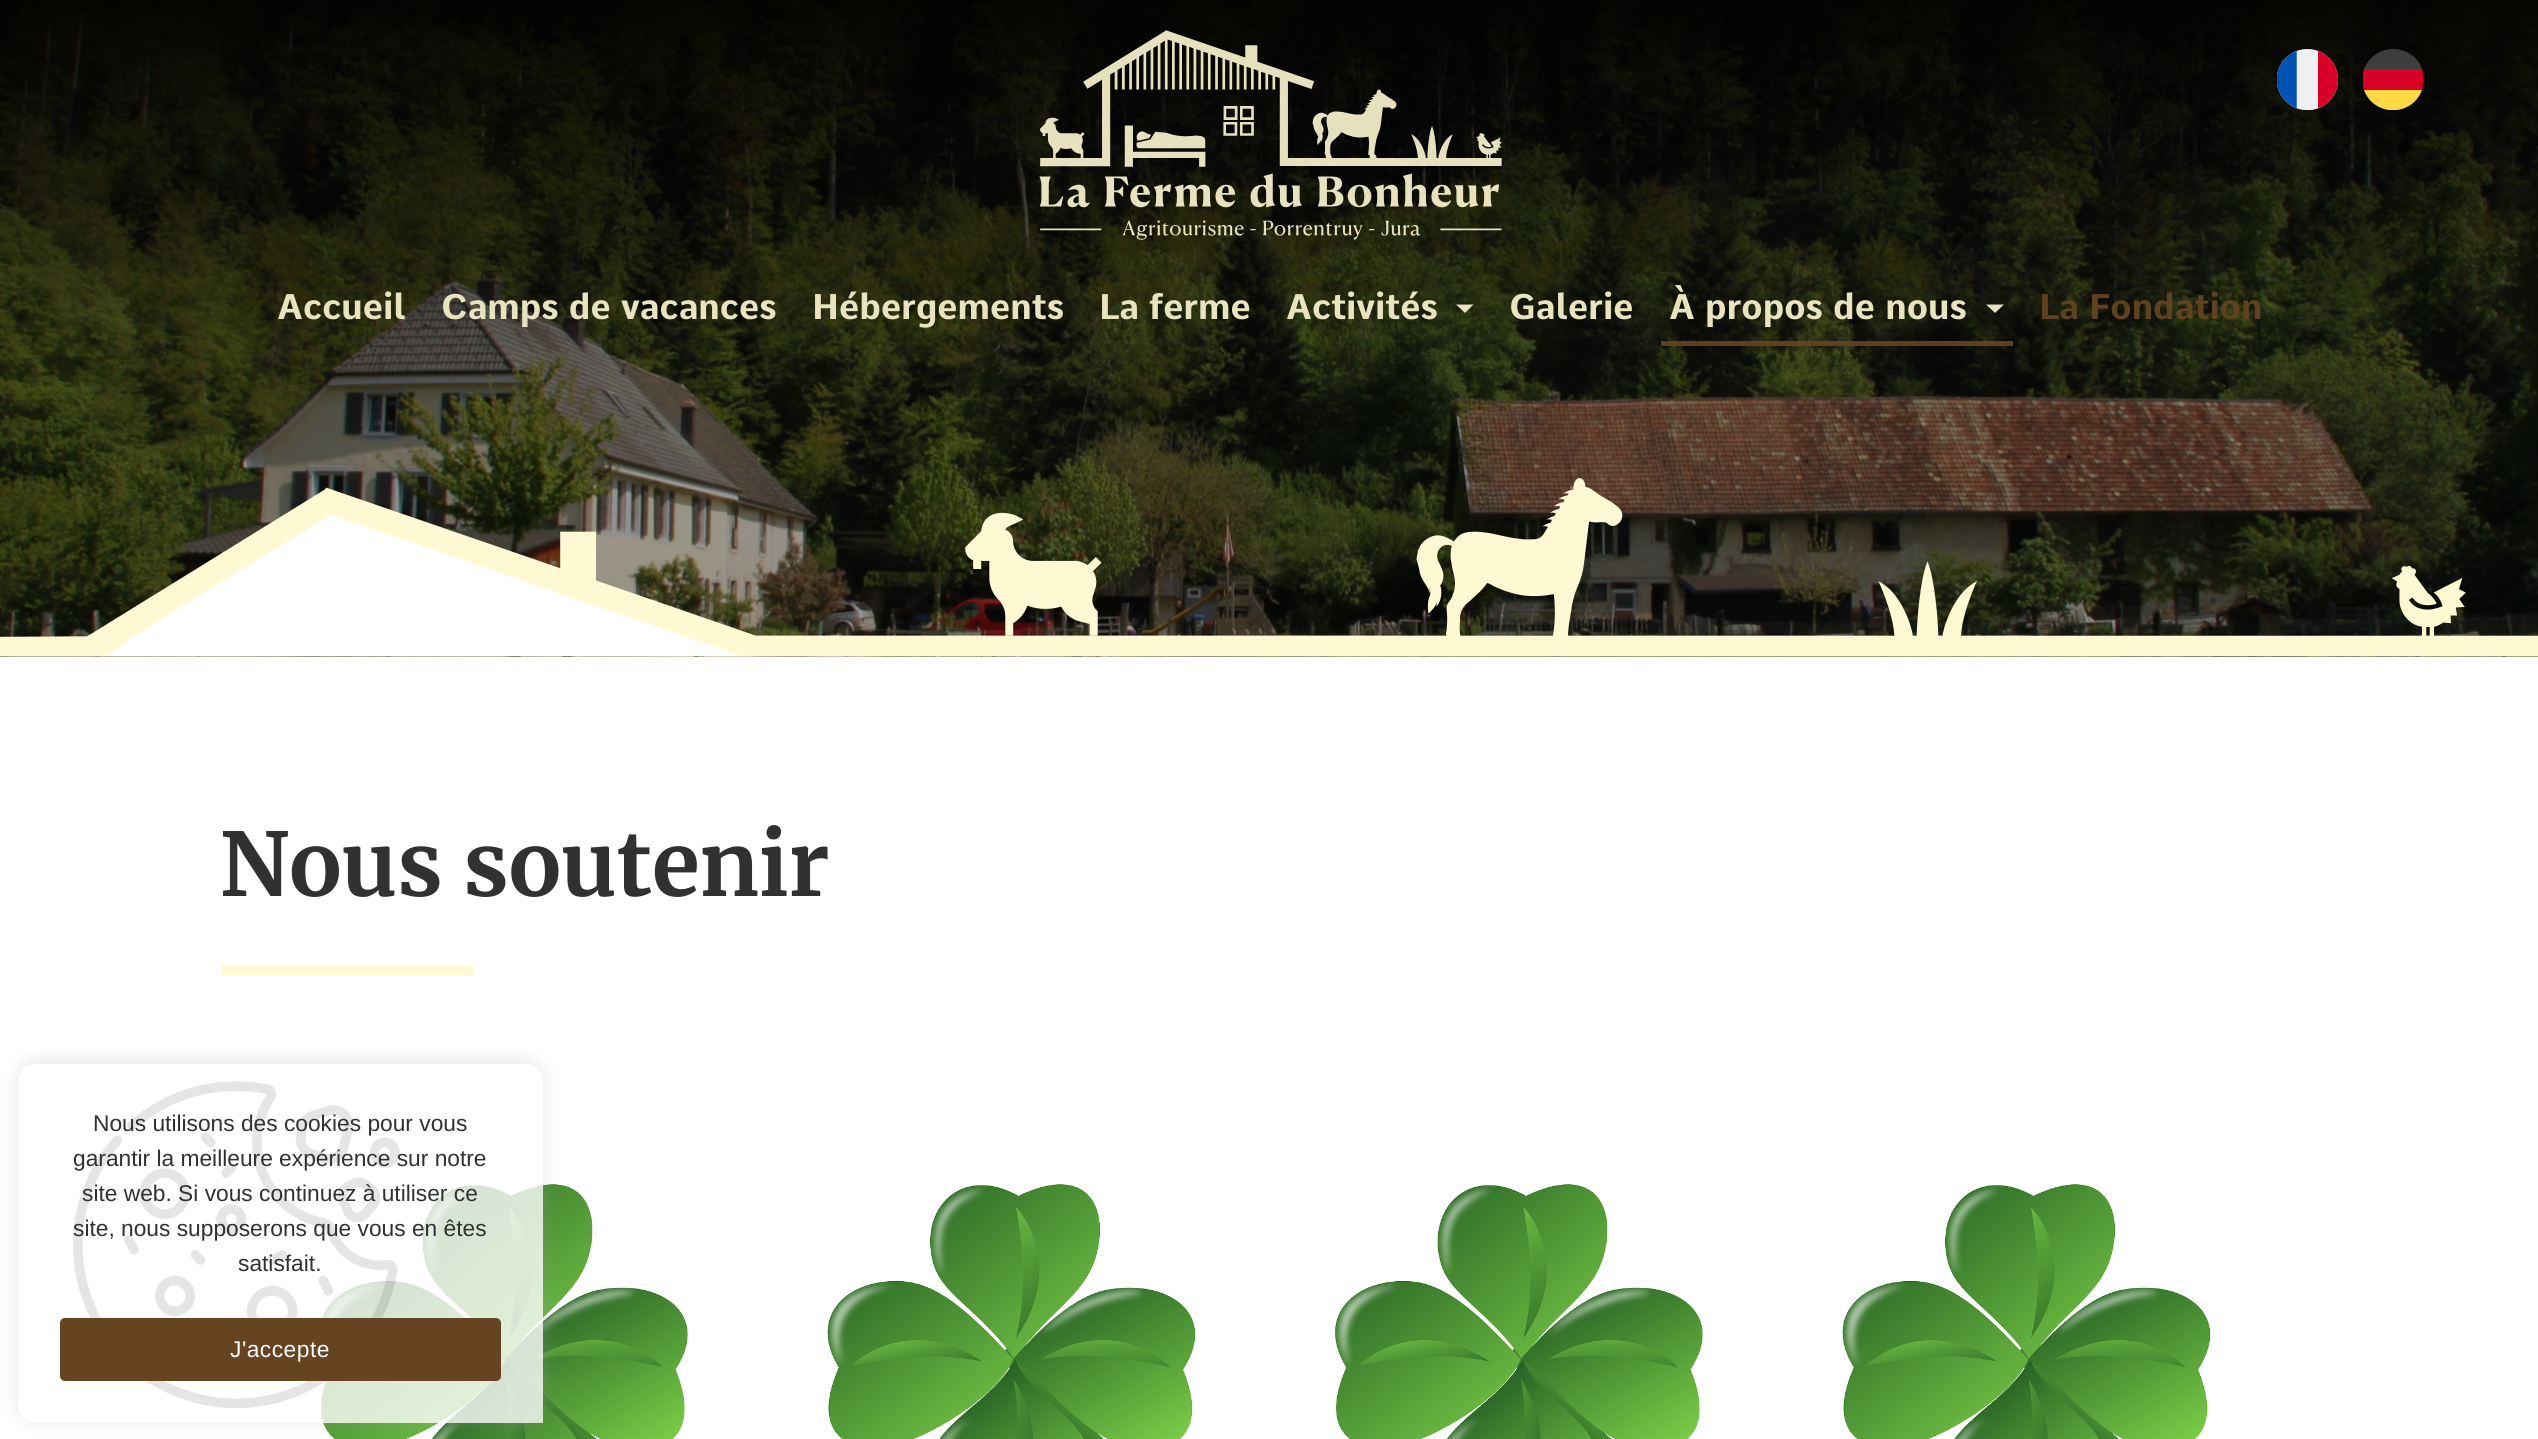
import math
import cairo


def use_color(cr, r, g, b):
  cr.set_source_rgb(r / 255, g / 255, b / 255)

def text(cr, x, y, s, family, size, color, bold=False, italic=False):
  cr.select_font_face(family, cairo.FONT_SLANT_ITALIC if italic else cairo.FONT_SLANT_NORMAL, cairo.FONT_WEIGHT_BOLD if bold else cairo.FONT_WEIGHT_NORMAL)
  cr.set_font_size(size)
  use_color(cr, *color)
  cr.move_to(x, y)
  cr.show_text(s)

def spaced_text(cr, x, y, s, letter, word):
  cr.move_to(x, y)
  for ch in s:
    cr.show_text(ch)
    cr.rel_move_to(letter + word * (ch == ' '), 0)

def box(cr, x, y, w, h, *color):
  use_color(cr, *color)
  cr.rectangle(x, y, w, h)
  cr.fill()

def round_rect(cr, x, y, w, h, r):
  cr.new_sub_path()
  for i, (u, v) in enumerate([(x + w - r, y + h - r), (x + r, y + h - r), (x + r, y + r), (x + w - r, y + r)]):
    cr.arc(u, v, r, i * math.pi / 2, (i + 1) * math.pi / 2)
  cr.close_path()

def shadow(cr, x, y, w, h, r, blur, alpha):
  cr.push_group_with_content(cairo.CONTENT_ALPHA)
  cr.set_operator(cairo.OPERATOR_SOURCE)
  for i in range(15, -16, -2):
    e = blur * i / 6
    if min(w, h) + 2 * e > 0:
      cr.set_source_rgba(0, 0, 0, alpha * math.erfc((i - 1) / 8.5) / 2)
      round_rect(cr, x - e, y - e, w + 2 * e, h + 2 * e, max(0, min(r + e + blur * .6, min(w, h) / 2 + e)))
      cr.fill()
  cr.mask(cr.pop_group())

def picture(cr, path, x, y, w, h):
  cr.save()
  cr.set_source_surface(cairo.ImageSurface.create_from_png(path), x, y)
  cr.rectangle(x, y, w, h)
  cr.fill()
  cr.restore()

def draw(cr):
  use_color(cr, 255, 255, 255)
  cr.paint()
  picture(cr, "img_02.png", 0, 0, 2538, 657)
  picture(cr, "img_01.png", 2277, 49, 61, 61)
  cr.save()
  cr.rectangle(2363, 49, 61, 61)
  cr.clip()
  use_color(cr, 255, 218, 68)
  cr.new_path()
  cr.move_to(2364, 90)
  cr.curve_to(2374, 117, 2412, 117, 2422, 90)
  cr.line_to(2393, 88)
  cr.close_path()
  cr.fill()
  cr.restore()
  use_color(cr, 61, 61, 61)
  cr.new_path()
  cr.move_to(2393, 49)
  cr.curve_to(2380, 49, 2369, 57, 2364, 69)
  cr.line_to(2393, 72)
  cr.line_to(2422, 69)
  cr.curve_to(2418, 57, 2406, 49, 2393, 49)
  cr.close_path()
  cr.fill()
  cr.save()
  cr.rectangle(2363, 49, 61, 61)
  cr.clip()
  use_color(cr, 216, 0, 39)
  cr.new_path()
  cr.move_to(2364, 69)
  cr.curve_to(2362, 76, 2362, 83, 2364, 90)
  cr.line_to(2422, 90)
  cr.curve_to(2424, 83, 2424, 76, 2422, 69)
  cr.close_path()
  cr.fill()
  cr.restore()
  picture(cr, "img_03.png", 0, 478, 2538, 178)
  picture(cr, "img_04.png", 1039, 30, 463, 210)
  cr.set_source_rgba(0.996, 0.976, 0.827, 0.9)
  cr.new_path()
  cr.move_to(1456, 304.5)
  cr.line_to(1473.5, 304.5)
  cr.line_to(1465, 313)
  cr.close_path()
  cr.fill()
  cr.set_source_rgba(0.4, 0.267, 0.129, 0.9)
  cr.rectangle(1661, 341, 352, 5)
  cr.fill()
  cr.set_source_rgba(0.996, 0.976, 0.827, 0.9)
  cr.new_path()
  cr.move_to(1986, 304.5)
  cr.line_to(2004, 304.5)
  cr.line_to(1995, 313)
  cr.close_path()
  cr.fill()
  box(cr, 221, 966, 252, 9, 254, 249, 211)
  picture(cr, "img_05.png", 321, 1184, 367, 255)
  picture(cr, "img_06.png", 827, 1184, 369, 255)
  picture(cr, "img_07.png", 1334, 1184, 369, 255)
  picture(cr, "img_08.png", 1842, 1184, 369, 255)
  cr.set_source_rgba(1, 1, 1, 0.8)
  cr.rectangle(321, 1185, 222, 238)
  cr.fill()
  picture(cr, "img_09.png", 73, 1081, 327, 327)
  cr.save()
  cr.set_fill_rule(cairo.FILL_RULE_EVEN_ODD)
  cr.new_path()
  cr.move_to(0, 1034)
  cr.line_to(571, 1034)
  cr.line_to(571, 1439)
  cr.line_to(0, 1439)
  cr.close_path()
  cr.move_to(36, 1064)
  cr.line_to(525, 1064)
  cr.curve_to(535, 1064, 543, 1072, 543, 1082)
  cr.line_to(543, 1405)
  cr.curve_to(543, 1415, 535, 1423, 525, 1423)
  cr.line_to(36, 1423)
  cr.curve_to(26, 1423, 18, 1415, 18, 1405)
  cr.line_to(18, 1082)
  cr.curve_to(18, 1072, 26, 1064, 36, 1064)
  cr.close_path()
  cr.clip()
  use_color(cr, 172, 171, 171)
  shadow(cr, 18, 1062, 525, 359, 18, 9, 0.3)
  cr.restore()
  use_color(cr, 102, 68, 33)
  round_rect(cr, 60, 1318, 441, 63, 5)
  cr.fill()
  text(cr, 277, 319, "Accueil", "Comme", 35, (232, 228, 191), bold=True)
  text(cr, 441, 319, "Camps de vacances", "Comme", 35, (232, 228, 191), bold=True)
  text(cr, 812, 319, "Hébergements", "Comme", 35, (232, 228, 191), bold=True)
  text(cr, 1099, 319, "La ferme", "Comme", 35, (232, 228, 191), bold=True)
  text(cr, 1286, 319, "Activités", "Comme", 35, (232, 228, 191), bold=True)
  text(cr, 1509, 319, "Galerie", "Comme", 35, (232, 228, 191), bold=True)
  text(cr, 1669, 319, "À propos de nous", "Comme", 35, (232, 228, 191), bold=True)
  text(cr, 2039, 319, "La Fondation", "Comme", 35, (95, 64, 31), bold=True)
  text(cr, 220, 896, "Nous soutenir", "Merriweather", 87.5, (49, 49, 49), bold=True)
  text(cr, 93, 1131, "Nous utilisons des cookies pour vous", "Liberation Sans", 22.75, (49, 49, 49))
  text(cr, 73, 1166, "garantir la meilleure expérience sur notre", "Liberation Sans", 22.75, (49, 49, 49))
  text(cr, 82, 1201, "site web. Si vous continuez à utiliser ce", "Liberation Sans", 22.75, (49, 49, 49))
  text(cr, 73, 1236, "site, nous supposerons que vous en êtes", "Liberation Sans", 22.75, (49, 49, 49))
  text(cr, 238, 1271, "satisfait.", "Liberation Sans", 22.75, (49, 49, 49))
  use_color(cr, 255, 255, 255)
  spaced_text(cr, 230, 1357, "J'accepte", 0.5, 0)


surface = cairo.ImageSurface(cairo.FORMAT_RGB24, 2538, 1439)
cr = cairo.Context(surface)
options = cairo.FontOptions()
options.set_hint_metrics(cairo.HINT_METRICS_OFF)
options.set_hint_style(cairo.HINT_STYLE_NONE)
cr.set_font_options(options)
cr.set_miter_limit(4)
draw(cr)
surface.write_to_png("out.png")
